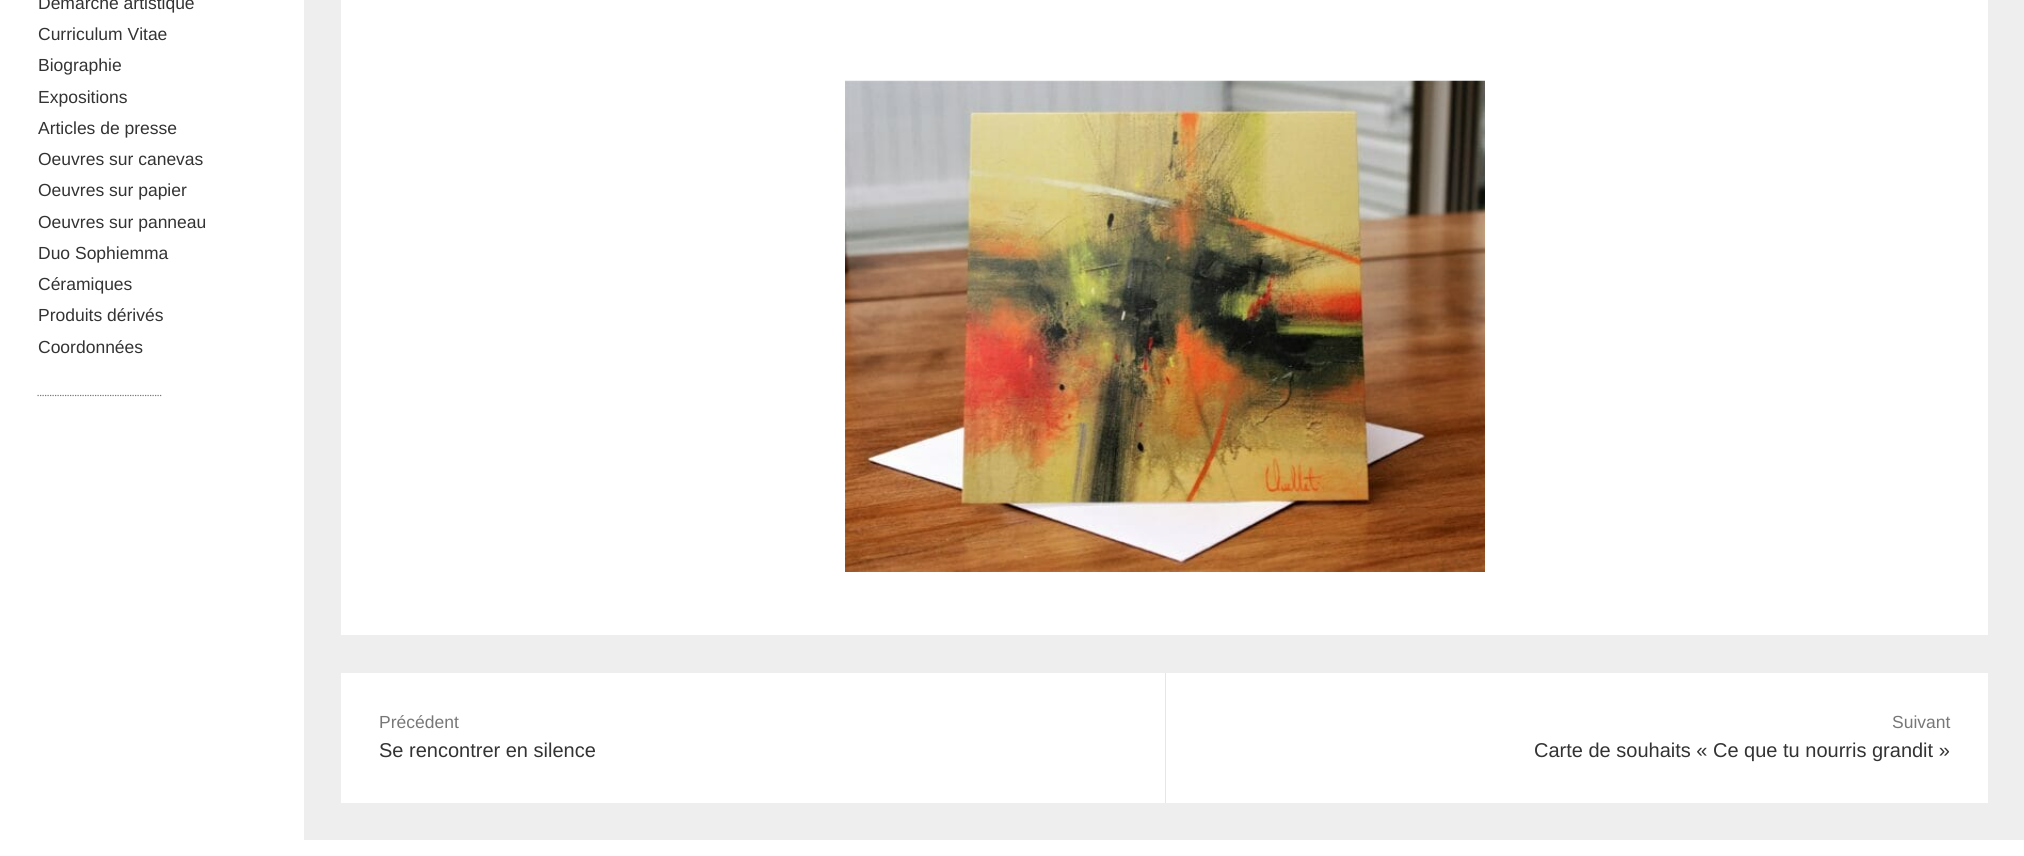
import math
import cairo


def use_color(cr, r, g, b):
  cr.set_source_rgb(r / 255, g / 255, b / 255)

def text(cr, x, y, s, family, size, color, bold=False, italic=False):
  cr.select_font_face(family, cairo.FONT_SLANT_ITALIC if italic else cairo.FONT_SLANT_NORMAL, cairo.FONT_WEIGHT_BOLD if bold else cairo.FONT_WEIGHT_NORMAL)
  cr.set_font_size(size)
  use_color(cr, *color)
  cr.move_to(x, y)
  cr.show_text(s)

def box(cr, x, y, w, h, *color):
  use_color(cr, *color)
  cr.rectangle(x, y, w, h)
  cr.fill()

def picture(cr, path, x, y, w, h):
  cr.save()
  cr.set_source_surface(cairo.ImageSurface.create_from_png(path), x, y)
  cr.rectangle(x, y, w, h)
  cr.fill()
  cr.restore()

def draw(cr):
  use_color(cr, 238, 238, 238)
  cr.paint()
  box(cr, 0, 0, 304, 840, 255, 255, 255)
  cr.new_path()
  cr.move_to(37.5, 395.5)
  cr.line_to(162.5, 395.5)
  use_color(cr, 119, 119, 119)
  cr.set_line_width(1.2)
  cr.set_dash([1.25, 1.25])
  cr.stroke()
  box(cr, 341, 0, 1647, 635, 255, 255, 255)
  picture(cr, "img_01.png", 845, 80, 640, 492)
  box(cr, 341, 673, 1647, 130, 255, 255, 255)
  box(cr, 1165, 673, 1, 130, 230, 230, 230)
  box(cr, 0, 840, 2024, 16, 255, 255, 255)
  text(cr, 38, 9, "Démarche artistique", "Liberation Sans", 17.5, (51, 51, 51))
  text(cr, 38, 40, "Curriculum Vitae", "Liberation Sans", 17.5, (51, 51, 51))
  text(cr, 38, 71, "Biographie", "Liberation Sans", 17.5, (51, 51, 51))
  text(cr, 38, 103, "Expositions", "Liberation Sans", 17.5, (51, 51, 51))
  text(cr, 38, 134, "Articles de presse", "Liberation Sans", 17.5, (51, 51, 51))
  text(cr, 38, 165, "Oeuvres sur canevas", "Liberation Sans", 17.5, (51, 51, 51))
  text(cr, 38, 196, "Oeuvres sur papier", "Liberation Sans", 17.5, (51, 51, 51))
  text(cr, 38, 228, "Oeuvres sur panneau", "Liberation Sans", 17.5, (51, 51, 51))
  text(cr, 38, 259, "Duo Sophiemma", "Liberation Sans", 17.5, (51, 51, 51))
  text(cr, 38, 290, "Céramiques", "Liberation Sans", 17.5, (51, 51, 51))
  text(cr, 38, 321, "Produits dérivés", "Liberation Sans", 17.5, (51, 51, 51))
  text(cr, 38, 353, "Coordonnées", "Liberation Sans", 17.5, (51, 51, 51))
  text(cr, 379, 728, "Précédent", "Liberation Sans", 17.5, (119, 119, 119))
  text(cr, 379, 757, "Se rencontrer en silence", "Liberation Sans", 20, (51, 51, 51))
  text(cr, 1892, 728, "Suivant", "Liberation Sans", 17.5, (119, 119, 119))
  text(cr, 1534, 757, "Carte de souhaits « Ce que tu nourris grandit »", "Liberation Sans", 20, (51, 51, 51))


surface = cairo.ImageSurface(cairo.FORMAT_RGB24, 2024, 856)
cr = cairo.Context(surface)
options = cairo.FontOptions()
options.set_hint_metrics(cairo.HINT_METRICS_OFF)
options.set_hint_style(cairo.HINT_STYLE_NONE)
cr.set_font_options(options)
cr.set_miter_limit(4)
draw(cr)
surface.write_to_png("out.png")
